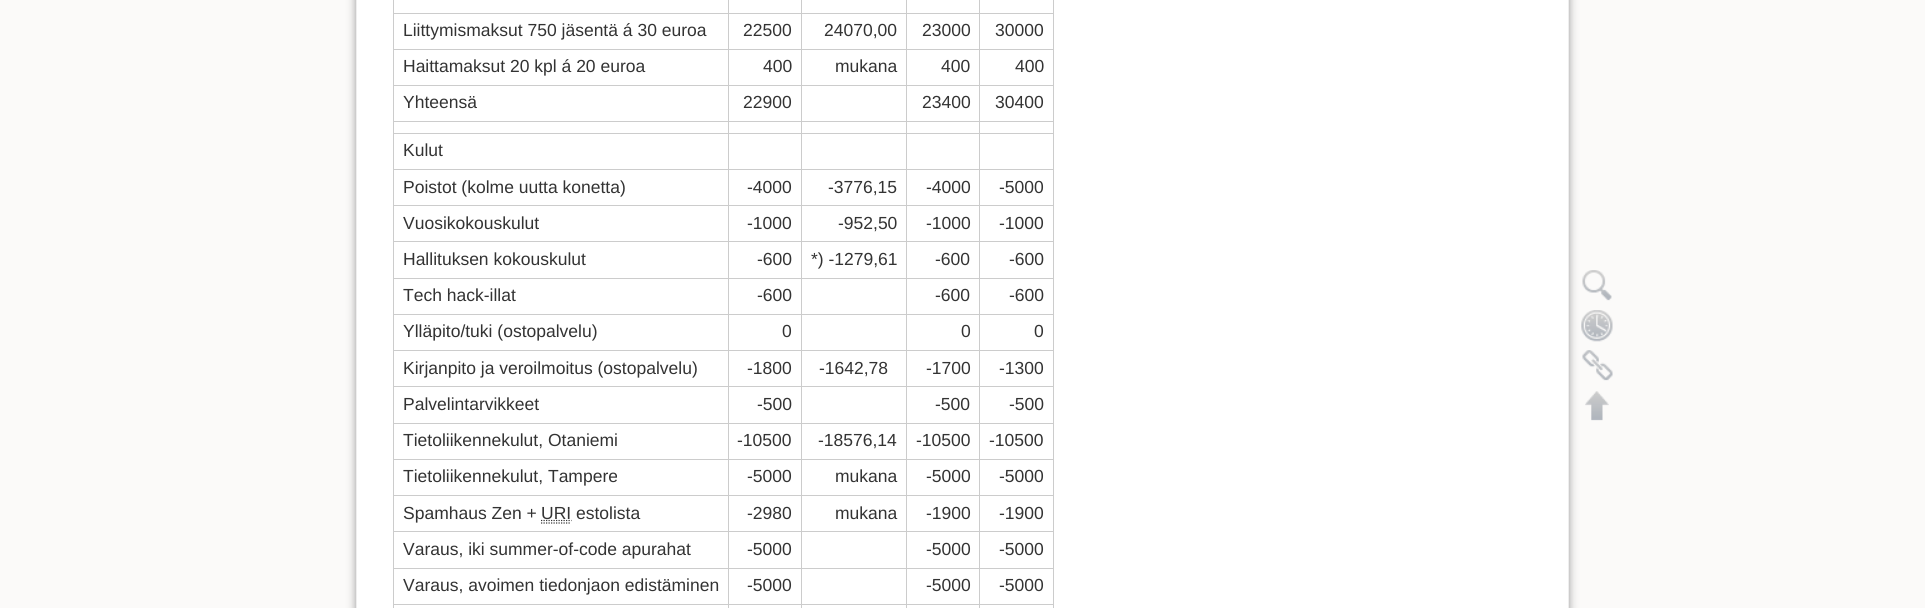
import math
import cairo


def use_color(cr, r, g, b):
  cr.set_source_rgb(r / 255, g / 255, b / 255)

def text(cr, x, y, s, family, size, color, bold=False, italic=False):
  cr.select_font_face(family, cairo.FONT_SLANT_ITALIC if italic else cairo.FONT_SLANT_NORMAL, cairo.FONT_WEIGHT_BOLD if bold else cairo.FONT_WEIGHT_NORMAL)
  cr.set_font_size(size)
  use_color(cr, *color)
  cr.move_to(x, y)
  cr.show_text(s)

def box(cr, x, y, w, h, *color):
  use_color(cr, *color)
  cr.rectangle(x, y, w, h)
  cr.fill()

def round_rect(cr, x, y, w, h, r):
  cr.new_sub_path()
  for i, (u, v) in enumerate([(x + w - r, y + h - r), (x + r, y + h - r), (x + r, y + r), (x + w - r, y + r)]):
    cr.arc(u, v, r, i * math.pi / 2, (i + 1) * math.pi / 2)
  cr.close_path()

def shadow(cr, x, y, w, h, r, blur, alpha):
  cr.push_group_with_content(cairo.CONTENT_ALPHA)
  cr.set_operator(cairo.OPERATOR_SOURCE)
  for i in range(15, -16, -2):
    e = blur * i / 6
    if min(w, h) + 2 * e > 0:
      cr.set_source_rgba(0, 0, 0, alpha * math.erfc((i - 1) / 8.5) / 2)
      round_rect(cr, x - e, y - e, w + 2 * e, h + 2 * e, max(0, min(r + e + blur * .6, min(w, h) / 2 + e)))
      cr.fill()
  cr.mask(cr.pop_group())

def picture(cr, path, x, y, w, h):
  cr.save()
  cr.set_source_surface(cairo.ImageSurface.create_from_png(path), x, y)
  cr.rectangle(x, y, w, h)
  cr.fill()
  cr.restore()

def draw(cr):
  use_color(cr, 251, 250, 249)
  cr.paint()
  use_color(cr, 153, 153, 153)
  shadow(cr, 356, -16, 1213, 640, 2.5, 4.5, 1)
  use_color(cr, 255, 255, 255)
  cr.rectangle(356.5, -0.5, 1212, 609)
  cr.fill_preserve()
  use_color(cr, 238, 238, 238)
  cr.set_line_width(1)
  cr.stroke()
  box(cr, 1053, 0, 1, 608, 204, 204, 204)
  box(cr, 393, 0, 1, 608, 204, 204, 204)
  box(cr, 979, 13, 75, 1, 204, 204, 204)
  box(cr, 979, 49, 75, 1, 204, 204, 204)
  box(cr, 979, 85, 75, 1, 204, 204, 204)
  box(cr, 979, 121, 75, 1, 204, 204, 204)
  box(cr, 979, 133, 75, 1, 204, 204, 204)
  box(cr, 979, 169, 75, 1, 204, 204, 204)
  box(cr, 979, 205, 75, 1, 204, 204, 204)
  box(cr, 979, 241, 75, 1, 204, 204, 204)
  box(cr, 979, 278, 75, 1, 204, 204, 204)
  box(cr, 979, 314, 75, 1, 204, 204, 204)
  box(cr, 979, 350, 75, 1, 204, 204, 204)
  box(cr, 979, 386, 75, 1, 204, 204, 204)
  box(cr, 979, 423, 75, 1, 204, 204, 204)
  box(cr, 979, 459, 75, 1, 204, 204, 204)
  box(cr, 979, 495, 75, 1, 204, 204, 204)
  box(cr, 979, 531, 75, 1, 204, 204, 204)
  box(cr, 979, 568, 75, 1, 204, 204, 204)
  box(cr, 979, 604, 75, 1, 204, 204, 204)
  box(cr, 979, 604, 1, 4, 204, 204, 204)
  box(cr, 906, 604, 74, 1, 204, 204, 204)
  box(cr, 979, 568, 1, 37, 204, 204, 204)
  box(cr, 906, 568, 74, 1, 204, 204, 204)
  box(cr, 979, 531, 1, 38, 204, 204, 204)
  box(cr, 906, 531, 74, 1, 204, 204, 204)
  box(cr, 979, 495, 1, 38, 204, 204, 204)
  box(cr, 906, 495, 74, 1, 204, 204, 204)
  box(cr, 979, 459, 1, 37, 204, 204, 204)
  box(cr, 906, 459, 74, 1, 204, 204, 204)
  box(cr, 979, 423, 1, 37, 204, 204, 204)
  box(cr, 906, 423, 74, 1, 204, 204, 204)
  box(cr, 979, 386, 1, 38, 204, 204, 204)
  box(cr, 906, 386, 74, 1, 204, 204, 204)
  box(cr, 979, 350, 1, 38, 204, 204, 204)
  box(cr, 906, 350, 74, 1, 204, 204, 204)
  box(cr, 979, 314, 1, 37, 204, 204, 204)
  box(cr, 906, 314, 74, 1, 204, 204, 204)
  box(cr, 979, 278, 1, 37, 204, 204, 204)
  box(cr, 906, 278, 74, 1, 204, 204, 204)
  box(cr, 979, 241, 1, 38, 204, 204, 204)
  box(cr, 906, 241, 74, 1, 204, 204, 204)
  box(cr, 979, 205, 1, 38, 204, 204, 204)
  box(cr, 906, 205, 74, 1, 204, 204, 204)
  box(cr, 979, 169, 1, 37, 204, 204, 204)
  box(cr, 906, 169, 74, 1, 204, 204, 204)
  box(cr, 979, 133, 1, 37, 204, 204, 204)
  box(cr, 906, 133, 74, 1, 204, 204, 204)
  box(cr, 979, 121, 1, 13, 204, 204, 204)
  box(cr, 906, 121, 74, 1, 204, 204, 204)
  box(cr, 979, 85, 1, 38, 204, 204, 204)
  box(cr, 906, 85, 74, 1, 204, 204, 204)
  box(cr, 979, 49, 1, 37, 204, 204, 204)
  box(cr, 906, 49, 74, 1, 204, 204, 204)
  box(cr, 979, 13, 1, 37, 204, 204, 204)
  box(cr, 906, 13, 74, 1, 204, 204, 204)
  box(cr, 906, 604, 1, 4, 204, 204, 204)
  box(cr, 801, 604, 107, 1, 204, 204, 204)
  box(cr, 906, 568, 1, 37, 204, 204, 204)
  box(cr, 801, 568, 107, 1, 204, 204, 204)
  box(cr, 906, 531, 1, 38, 204, 204, 204)
  box(cr, 801, 531, 107, 1, 204, 204, 204)
  box(cr, 906, 495, 1, 38, 204, 204, 204)
  box(cr, 801, 495, 107, 1, 204, 204, 204)
  box(cr, 906, 459, 1, 37, 204, 204, 204)
  box(cr, 801, 459, 107, 1, 204, 204, 204)
  box(cr, 906, 423, 1, 37, 204, 204, 204)
  box(cr, 801, 423, 107, 1, 204, 204, 204)
  box(cr, 906, 386, 1, 38, 204, 204, 204)
  box(cr, 801, 386, 107, 1, 204, 204, 204)
  box(cr, 906, 350, 1, 38, 204, 204, 204)
  box(cr, 801, 350, 107, 1, 204, 204, 204)
  box(cr, 906, 314, 1, 37, 204, 204, 204)
  box(cr, 801, 314, 107, 1, 204, 204, 204)
  box(cr, 906, 278, 1, 37, 204, 204, 204)
  box(cr, 801, 278, 107, 1, 204, 204, 204)
  box(cr, 906, 241, 1, 38, 204, 204, 204)
  box(cr, 801, 241, 107, 1, 204, 204, 204)
  box(cr, 906, 205, 1, 38, 204, 204, 204)
  box(cr, 801, 205, 107, 1, 204, 204, 204)
  box(cr, 906, 169, 1, 37, 204, 204, 204)
  box(cr, 801, 169, 107, 1, 204, 204, 204)
  box(cr, 906, 133, 1, 37, 204, 204, 204)
  box(cr, 801, 133, 107, 1, 204, 204, 204)
  box(cr, 906, 121, 1, 13, 204, 204, 204)
  box(cr, 801, 121, 107, 1, 204, 204, 204)
  box(cr, 906, 85, 1, 38, 204, 204, 204)
  box(cr, 801, 85, 107, 1, 204, 204, 204)
  box(cr, 906, 49, 1, 37, 204, 204, 204)
  box(cr, 801, 49, 107, 1, 204, 204, 204)
  box(cr, 906, 13, 1, 37, 204, 204, 204)
  box(cr, 801, 13, 107, 1, 204, 204, 204)
  box(cr, 801, 604, 1, 4, 204, 204, 204)
  box(cr, 728, 604, 75, 1, 204, 204, 204)
  box(cr, 801, 568, 1, 37, 204, 204, 204)
  box(cr, 728, 568, 75, 1, 204, 204, 204)
  box(cr, 801, 531, 1, 38, 204, 204, 204)
  box(cr, 728, 531, 75, 1, 204, 204, 204)
  box(cr, 801, 495, 1, 38, 204, 204, 204)
  box(cr, 728, 495, 75, 1, 204, 204, 204)
  box(cr, 801, 459, 1, 37, 204, 204, 204)
  box(cr, 728, 459, 75, 1, 204, 204, 204)
  box(cr, 801, 423, 1, 37, 204, 204, 204)
  box(cr, 728, 423, 75, 1, 204, 204, 204)
  box(cr, 801, 386, 1, 38, 204, 204, 204)
  box(cr, 728, 386, 75, 1, 204, 204, 204)
  box(cr, 801, 350, 1, 38, 204, 204, 204)
  box(cr, 728, 350, 75, 1, 204, 204, 204)
  box(cr, 801, 314, 1, 37, 204, 204, 204)
  box(cr, 728, 314, 75, 1, 204, 204, 204)
  box(cr, 801, 278, 1, 37, 204, 204, 204)
  box(cr, 728, 278, 75, 1, 204, 204, 204)
  box(cr, 801, 241, 1, 38, 204, 204, 204)
  box(cr, 728, 241, 75, 1, 204, 204, 204)
  box(cr, 801, 205, 1, 38, 204, 204, 204)
  box(cr, 728, 205, 75, 1, 204, 204, 204)
  box(cr, 801, 169, 1, 37, 204, 204, 204)
  box(cr, 728, 169, 75, 1, 204, 204, 204)
  box(cr, 801, 133, 1, 37, 204, 204, 204)
  box(cr, 728, 133, 75, 1, 204, 204, 204)
  box(cr, 801, 121, 1, 13, 204, 204, 204)
  box(cr, 728, 121, 75, 1, 204, 204, 204)
  box(cr, 801, 85, 1, 38, 204, 204, 204)
  box(cr, 728, 85, 75, 1, 204, 204, 204)
  box(cr, 801, 49, 1, 37, 204, 204, 204)
  box(cr, 728, 49, 75, 1, 204, 204, 204)
  box(cr, 801, 13, 1, 37, 204, 204, 204)
  box(cr, 728, 13, 75, 1, 204, 204, 204)
  box(cr, 728, 604, 1, 4, 204, 204, 204)
  box(cr, 393, 604, 336, 1, 204, 204, 204)
  box(cr, 728, 568, 1, 37, 204, 204, 204)
  box(cr, 393, 568, 336, 1, 204, 204, 204)
  box(cr, 728, 531, 1, 38, 204, 204, 204)
  box(cr, 393, 531, 336, 1, 204, 204, 204)
  box(cr, 728, 495, 1, 38, 204, 204, 204)
  box(cr, 393, 495, 336, 1, 204, 204, 204)
  box(cr, 728, 459, 1, 37, 204, 204, 204)
  box(cr, 393, 459, 336, 1, 204, 204, 204)
  box(cr, 728, 423, 1, 37, 204, 204, 204)
  box(cr, 393, 423, 336, 1, 204, 204, 204)
  box(cr, 728, 386, 1, 38, 204, 204, 204)
  box(cr, 393, 386, 336, 1, 204, 204, 204)
  box(cr, 728, 350, 1, 38, 204, 204, 204)
  box(cr, 393, 350, 336, 1, 204, 204, 204)
  box(cr, 728, 314, 1, 37, 204, 204, 204)
  box(cr, 393, 314, 336, 1, 204, 204, 204)
  box(cr, 728, 278, 1, 37, 204, 204, 204)
  box(cr, 393, 278, 336, 1, 204, 204, 204)
  box(cr, 728, 241, 1, 38, 204, 204, 204)
  box(cr, 393, 241, 336, 1, 204, 204, 204)
  box(cr, 728, 205, 1, 38, 204, 204, 204)
  box(cr, 393, 205, 336, 1, 204, 204, 204)
  box(cr, 728, 169, 1, 37, 204, 204, 204)
  box(cr, 393, 169, 336, 1, 204, 204, 204)
  box(cr, 728, 133, 1, 37, 204, 204, 204)
  box(cr, 393, 133, 336, 1, 204, 204, 204)
  box(cr, 728, 121, 1, 13, 204, 204, 204)
  box(cr, 393, 121, 336, 1, 204, 204, 204)
  box(cr, 728, 85, 1, 38, 204, 204, 204)
  box(cr, 393, 85, 336, 1, 204, 204, 204)
  box(cr, 728, 49, 1, 37, 204, 204, 204)
  box(cr, 393, 49, 336, 1, 204, 204, 204)
  box(cr, 728, 13, 1, 37, 204, 204, 204)
  box(cr, 393, 13, 336, 1, 204, 204, 204)
  box(cr, 728, 0, 1, 14, 204, 204, 204)
  box(cr, 801, 0, 1, 14, 204, 204, 204)
  box(cr, 906, 0, 1, 14, 204, 204, 204)
  box(cr, 979, 0, 1, 14, 204, 204, 204)
  cr.new_path()
  cr.move_to(541, 523)
  cr.line_to(571, 523)
  cr.move_to(541, 520.5)
  cr.line_to(571.5, 520.5)
  use_color(cr, 51, 51, 51)
  cr.set_line_width(1.2)
  cr.set_dash([1.25, 1.25])
  cr.stroke()
  picture(cr, "img_01.png", 1582, 270, 30, 31)
  picture(cr, "img_02.png", 1581, 310, 32, 32)
  picture(cr, "img_03.png", 1582, 350, 31, 31)
  picture(cr, "img_04.png", 1585, 391, 24, 30)
  text(cr, 403, 36, "Liittymismaksut 750 jäsentä á 30 euroa", "Liberation Sans", 17.5, (51, 51, 51))
  text(cr, 743, 36, "22500", "Liberation Sans", 17.5, (51, 51, 51))
  text(cr, 824, 36, "24070,00", "Liberation Sans", 17.5, (51, 51, 51))
  text(cr, 922, 36, "23000", "Liberation Sans", 17.5, (51, 51, 51))
  text(cr, 995, 36, "30000", "Liberation Sans", 17.5, (51, 51, 51))
  text(cr, 403, 72, "Haittamaksut 20 kpl á 20 euroa", "Liberation Sans", 17.5, (51, 51, 51))
  text(cr, 763, 72, "400", "Liberation Sans", 17.5, (51, 51, 51))
  text(cr, 835, 72, "mukana", "Liberation Sans", 17.5, (51, 51, 51))
  text(cr, 941, 72, "400", "Liberation Sans", 17.5, (51, 51, 51))
  text(cr, 1015, 72, "400", "Liberation Sans", 17.5, (51, 51, 51))
  text(cr, 403, 108, "Yhteensä", "Liberation Sans", 17.5, (51, 51, 51))
  text(cr, 743, 108, "22900", "Liberation Sans", 17.5, (51, 51, 51))
  text(cr, 922, 108, "23400", "Liberation Sans", 17.5, (51, 51, 51))
  text(cr, 995, 108, "30400", "Liberation Sans", 17.5, (51, 51, 51))
  text(cr, 403, 156, "Kulut", "Liberation Sans", 17.5, (51, 51, 51))
  text(cr, 403, 193, "Poistot (kolme uutta konetta)", "Liberation Sans", 17.5, (51, 51, 51))
  text(cr, 747, 193, "-4000", "Liberation Sans", 17.5, (51, 51, 51))
  text(cr, 828, 193, "-3776,15", "Liberation Sans", 17.5, (51, 51, 51))
  text(cr, 926, 193, "-4000", "Liberation Sans", 17.5, (51, 51, 51))
  text(cr, 999, 193, "-5000", "Liberation Sans", 17.5, (51, 51, 51))
  text(cr, 403, 229, "Vuosikokouskulut", "Liberation Sans", 17.5, (51, 51, 51))
  text(cr, 747, 229, "-1000", "Liberation Sans", 17.5, (51, 51, 51))
  text(cr, 838, 229, "-952,50", "Liberation Sans", 17.5, (51, 51, 51))
  text(cr, 926, 229, "-1000", "Liberation Sans", 17.5, (51, 51, 51))
  text(cr, 999, 229, "-1000", "Liberation Sans", 17.5, (51, 51, 51))
  text(cr, 403, 265, "Hallituksen kokouskulut", "Liberation Sans", 17.5, (51, 51, 51))
  text(cr, 757, 265, "-600", "Liberation Sans", 17.5, (51, 51, 51))
  text(cr, 811, 265, "*) -1279,61", "Liberation Sans", 17.5, (51, 51, 51))
  text(cr, 935, 265, "-600", "Liberation Sans", 17.5, (51, 51, 51))
  text(cr, 1009, 265, "-600", "Liberation Sans", 17.5, (51, 51, 51))
  text(cr, 403, 301, "Tech hack-illat", "Liberation Sans", 17.5, (51, 51, 51))
  text(cr, 757, 301, "-600", "Liberation Sans", 17.5, (51, 51, 51))
  text(cr, 935, 301, "-600", "Liberation Sans", 17.5, (51, 51, 51))
  text(cr, 1009, 301, "-600", "Liberation Sans", 17.5, (51, 51, 51))
  text(cr, 403, 337, "Ylläpito/tuki (ostopalvelu)", "Liberation Sans", 17.5, (51, 51, 51))
  text(cr, 782, 337, "0", "Liberation Sans", 17.5, (51, 51, 51))
  text(cr, 961, 337, "0", "Liberation Sans", 17.5, (51, 51, 51))
  text(cr, 1034, 337, "0", "Liberation Sans", 17.5, (51, 51, 51))
  text(cr, 403, 374, "Kirjanpito ja veroilmoitus (ostopalvelu)", "Liberation Sans", 17.5, (51, 51, 51))
  text(cr, 747, 374, "-1800", "Liberation Sans", 17.5, (51, 51, 51))
  text(cr, 819, 374, "-1642,78", "Liberation Sans", 17.5, (51, 51, 51))
  text(cr, 926, 374, "-1700", "Liberation Sans", 17.5, (51, 51, 51))
  text(cr, 999, 374, "-1300", "Liberation Sans", 17.5, (51, 51, 51))
  text(cr, 403, 410, "Palvelintarvikkeet", "Liberation Sans", 17.5, (51, 51, 51))
  text(cr, 757, 410, "-500", "Liberation Sans", 17.5, (51, 51, 51))
  text(cr, 935, 410, "-500", "Liberation Sans", 17.5, (51, 51, 51))
  text(cr, 1009, 410, "-500", "Liberation Sans", 17.5, (51, 51, 51))
  text(cr, 403, 446, "Tietoliikennekulut, Otaniemi", "Liberation Sans", 17.5, (51, 51, 51))
  text(cr, 737, 446, "-10500", "Liberation Sans", 17.5, (51, 51, 51))
  text(cr, 818, 446, "-18576,14", "Liberation Sans", 17.5, (51, 51, 51))
  text(cr, 916, 446, "-10500", "Liberation Sans", 17.5, (51, 51, 51))
  text(cr, 989, 446, "-10500", "Liberation Sans", 17.5, (51, 51, 51))
  text(cr, 403, 482, "Tietoliikennekulut, Tampere", "Liberation Sans", 17.5, (51, 51, 51))
  text(cr, 747, 482, "-5000", "Liberation Sans", 17.5, (51, 51, 51))
  text(cr, 835, 482, "mukana", "Liberation Sans", 17.5, (51, 51, 51))
  text(cr, 926, 482, "-5000", "Liberation Sans", 17.5, (51, 51, 51))
  text(cr, 999, 482, "-5000", "Liberation Sans", 17.5, (51, 51, 51))
  text(cr, 403, 519, "Spamhaus Zen +", "Liberation Sans", 17.5, (51, 51, 51))
  text(cr, 541, 519, "URI estolista", "Liberation Sans", 17.5, (51, 51, 51))
  text(cr, 747, 519, "-2980", "Liberation Sans", 17.5, (51, 51, 51))
  text(cr, 835, 519, "mukana", "Liberation Sans", 17.5, (51, 51, 51))
  text(cr, 926, 519, "-1900", "Liberation Sans", 17.5, (51, 51, 51))
  text(cr, 999, 519, "-1900", "Liberation Sans", 17.5, (51, 51, 51))
  text(cr, 403, 555, "Varaus, iki summer-of-code apurahat", "Liberation Sans", 17.5, (51, 51, 51))
  text(cr, 747, 555, "-5000", "Liberation Sans", 17.5, (51, 51, 51))
  text(cr, 926, 555, "-5000", "Liberation Sans", 17.5, (51, 51, 51))
  text(cr, 999, 555, "-5000", "Liberation Sans", 17.5, (51, 51, 51))
  text(cr, 403, 591, "Varaus, avoimen tiedonjaon edistäminen", "Liberation Sans", 17.5, (51, 51, 51))
  text(cr, 747, 591, "-5000", "Liberation Sans", 17.5, (51, 51, 51))
  text(cr, 926, 591, "-5000", "Liberation Sans", 17.5, (51, 51, 51))
  text(cr, 999, 591, "-5000", "Liberation Sans", 17.5, (51, 51, 51))


surface = cairo.ImageSurface(cairo.FORMAT_RGB24, 1925, 608)
cr = cairo.Context(surface)
options = cairo.FontOptions()
options.set_hint_metrics(cairo.HINT_METRICS_OFF)
options.set_hint_style(cairo.HINT_STYLE_NONE)
cr.set_font_options(options)
cr.set_miter_limit(4)
draw(cr)
surface.write_to_png("out.png")
